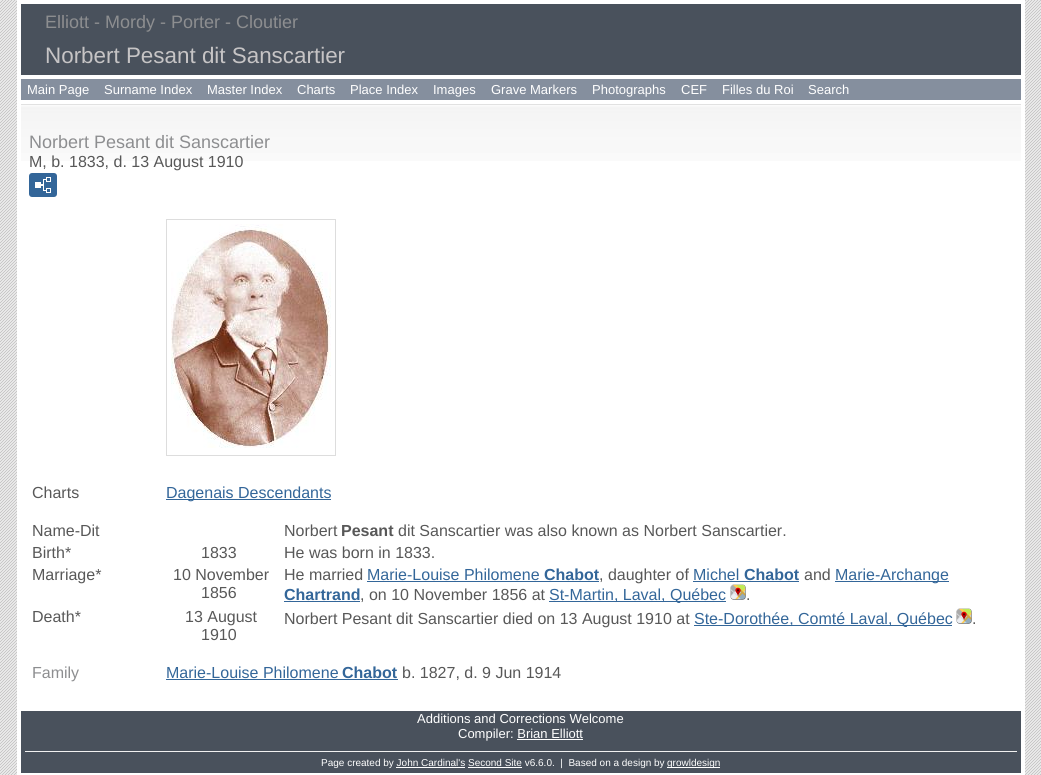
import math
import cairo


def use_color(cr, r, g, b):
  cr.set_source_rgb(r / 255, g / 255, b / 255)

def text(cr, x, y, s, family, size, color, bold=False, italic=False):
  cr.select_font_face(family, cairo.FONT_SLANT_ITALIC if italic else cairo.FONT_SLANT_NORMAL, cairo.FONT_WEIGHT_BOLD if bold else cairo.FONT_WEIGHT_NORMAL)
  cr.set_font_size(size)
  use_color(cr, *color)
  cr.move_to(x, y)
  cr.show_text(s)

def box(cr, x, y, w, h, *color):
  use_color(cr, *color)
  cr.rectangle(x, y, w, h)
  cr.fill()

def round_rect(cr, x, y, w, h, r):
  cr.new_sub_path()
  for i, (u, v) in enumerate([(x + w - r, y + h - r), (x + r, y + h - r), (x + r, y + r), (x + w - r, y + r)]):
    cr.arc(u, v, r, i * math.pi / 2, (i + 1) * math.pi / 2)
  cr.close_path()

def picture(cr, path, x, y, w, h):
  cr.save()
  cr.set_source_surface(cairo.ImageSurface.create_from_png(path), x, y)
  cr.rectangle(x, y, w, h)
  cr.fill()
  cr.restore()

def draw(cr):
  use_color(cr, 255, 255, 255)
  cr.paint()
  picture(cr, "img_01.png", 0, 0, 1041, 775)
  box(cr, 17, 0, 1008, 775, 255, 255, 255)
  box(cr, 21, 4, 1000, 71, 73, 81, 92)
  box(cr, 21, 79, 1000, 21, 133, 143, 158)
  picture(cr, "img_02.png", 21, 105, 1000, 56)
  box(cr, 21, 104, 1000, 1, 225, 225, 225)
  use_color(cr, 51, 102, 153)
  round_rect(cr, 29, 173, 28, 24, 3)
  cr.fill()
  picture(cr, "img_03.png", 35, 177, 16, 16)
  cr.rectangle(166.5, 219.5, 169, 236)
  use_color(cr, 221, 221, 221)
  cr.set_line_width(1)
  cr.stroke()
  picture(cr, "img_04.png", 171, 224, 160, 224)
  box(cr, 166, 499, 165, 1, 51, 102, 153)
  box(cr, 367, 581, 232, 1, 51, 102, 153)
  box(cr, 693, 581, 106, 1, 51, 102, 153)
  box(cr, 835, 581, 114, 1, 51, 102, 153)
  box(cr, 284, 601, 76, 1, 51, 102, 153)
  box(cr, 549, 601, 177, 1, 51, 102, 153)
  picture(cr, "img_05.png", 730, 584, 16, 16)
  box(cr, 694, 625, 258, 1, 51, 102, 153)
  picture(cr, "img_05.png", 956, 608, 16, 16)
  box(cr, 166, 679, 232, 1, 51, 102, 153)
  box(cr, 21, 711, 1000, 62, 73, 81, 92)
  box(cr, 517, 739, 66, 1, 255, 255, 255)
  box(cr, 25, 751, 992, 1, 241, 241, 241)
  box(cr, 667, 767, 53, 1, 255, 255, 255)
  box(cr, 396, 767, 69, 1, 255, 255, 255)
  box(cr, 468, 767, 54, 1, 255, 255, 255)
  text(cr, 45, 28, "Elliott - Mordy - Porter - Cloutier", "Liberation Sans", 18, (141, 142, 144))
  text(cr, 45, 63, "Norbert Pesant dit Sanscartier", "Liberation Sans", 22.4, (198, 196, 197))
  text(cr, 27, 94, "Main Page", "Liberation Sans", 13, (255, 255, 255))
  text(cr, 104, 94, "Surname Index", "Liberation Sans", 13, (255, 255, 255))
  text(cr, 207, 94, "Master Index", "Liberation Sans", 13, (255, 255, 255))
  text(cr, 297, 94, "Charts", "Liberation Sans", 13, (255, 255, 255))
  text(cr, 350, 94, "Place Index", "Liberation Sans", 13, (255, 255, 255))
  text(cr, 433, 94, "Images", "Liberation Sans", 13, (255, 255, 255))
  text(cr, 491, 94, "Grave Markers", "Liberation Sans", 13, (255, 255, 255))
  text(cr, 592, 94, "Photographs", "Liberation Sans", 13, (255, 255, 255))
  text(cr, 681, 94, "CEF", "Liberation Sans", 13, (255, 255, 255))
  text(cr, 722, 94, "Filles du Roi", "Liberation Sans", 13, (255, 255, 255))
  text(cr, 808, 94, "Search", "Liberation Sans", 13, (255, 255, 255))
  text(cr, 29, 148, "Norbert Pesant dit Sanscartier", "Liberation Sans", 18, (141, 142, 144))
  text(cr, 29, 167, "M, b. 1833, d. 13 August 1910", "Liberation Sans", 16, (88, 88, 88))
  text(cr, 32, 498, "Charts", "Liberation Sans", 16, (88, 88, 88))
  text(cr, 166, 498, "Dagenais Descendants", "Liberation Sans", 16, (51, 102, 153))
  text(cr, 32, 536, "Name-Dit", "Liberation Sans", 16, (88, 88, 88))
  text(cr, 284, 536, "Norbert", "Liberation Sans", 16, (88, 88, 88))
  text(cr, 341, 536, "Pesant", "Liberation Sans", 16, (88, 88, 88), bold=True)
  text(cr, 398, 536, "dit Sanscartier was also known as Norbert Sanscartier.", "Liberation Sans", 16, (88, 88, 88))
  text(cr, 32, 558, "Birth*", "Liberation Sans", 16, (88, 88, 88))
  text(cr, 201, 558, "1833", "Liberation Sans", 16, (88, 88, 88))
  text(cr, 284, 558, "He was born in 1833.", "Liberation Sans", 16, (88, 88, 88))
  text(cr, 32, 580, "Marriage*", "Liberation Sans", 16, (88, 88, 88))
  text(cr, 173, 580, "10 November", "Liberation Sans", 16, (88, 88, 88))
  text(cr, 201, 598, "1856", "Liberation Sans", 16, (88, 88, 88))
  text(cr, 284, 580, "He married", "Liberation Sans", 16, (88, 88, 88))
  text(cr, 367, 580, "Marie-Louise Philomene", "Liberation Sans", 16, (51, 102, 153))
  text(cr, 544, 580, "Chabot", "Liberation Sans", 16, (51, 102, 153), bold=True)
  text(cr, 599, 580, ", daughter of", "Liberation Sans", 16, (88, 88, 88))
  text(cr, 693, 580, "Michel", "Liberation Sans", 16, (51, 102, 153))
  text(cr, 744, 580, "Chabot", "Liberation Sans", 16, (51, 102, 153), bold=True)
  text(cr, 804, 580, "and", "Liberation Sans", 16, (88, 88, 88))
  text(cr, 835, 580, "Marie-Archange", "Liberation Sans", 16, (51, 102, 153))
  text(cr, 284, 600, "Chartrand", "Liberation Sans", 16, (51, 102, 153), bold=True)
  text(cr, 360, 600, ", on 10 November 1856 at", "Liberation Sans", 16, (88, 88, 88))
  text(cr, 549, 600, "St-Martin, Laval, Québec", "Liberation Sans", 16, (51, 102, 153))
  text(cr, 746, 600, ".", "Liberation Sans", 16, (88, 88, 88))
  text(cr, 32, 622, "Death*", "Liberation Sans", 16, (88, 88, 88))
  text(cr, 185, 622, "13 August", "Liberation Sans", 16, (88, 88, 88))
  text(cr, 201, 640, "1910", "Liberation Sans", 16, (88, 88, 88))
  text(cr, 284, 624, "Norbert Pesant dit Sanscartier died on 13 August 1910 at", "Liberation Sans", 16, (88, 88, 88))
  text(cr, 694, 624, "Ste-Dorothée, Comté Laval, Québec", "Liberation Sans", 16, (51, 102, 153))
  text(cr, 972, 624, ".", "Liberation Sans", 16, (88, 88, 88))
  text(cr, 32, 678, "Family", "Liberation Sans", 16, (141, 142, 144))
  text(cr, 166, 678, "Marie-Louise Philomene", "Liberation Sans", 16, (51, 102, 153))
  text(cr, 342, 678, "Chabot", "Liberation Sans", 16, (51, 102, 153), bold=True)
  text(cr, 402, 678, "b. 1827, d. 9 Jun 1914", "Liberation Sans", 16, (88, 88, 88))
  text(cr, 417, 723, "Additions and Corrections Welcome", "Liberation Sans", 13, (255, 255, 255))
  text(cr, 458, 738, "Compiler: Brian Elliott", "Liberation Sans", 13, (255, 255, 255))
  text(cr, 321, 766, "Page created by John Cardinal's Second Site v6.6.0.  |  Based on a design by", "Liberation Sans", 10, (255, 255, 255))
  text(cr, 667, 766, "growldesign", "Liberation Sans", 10, (255, 255, 255))


surface = cairo.ImageSurface(cairo.FORMAT_RGB24, 1041, 775)
cr = cairo.Context(surface)
options = cairo.FontOptions()
options.set_hint_metrics(cairo.HINT_METRICS_OFF)
options.set_hint_style(cairo.HINT_STYLE_NONE)
cr.set_font_options(options)
cr.set_miter_limit(4)
draw(cr)
surface.write_to_png("out.png")
